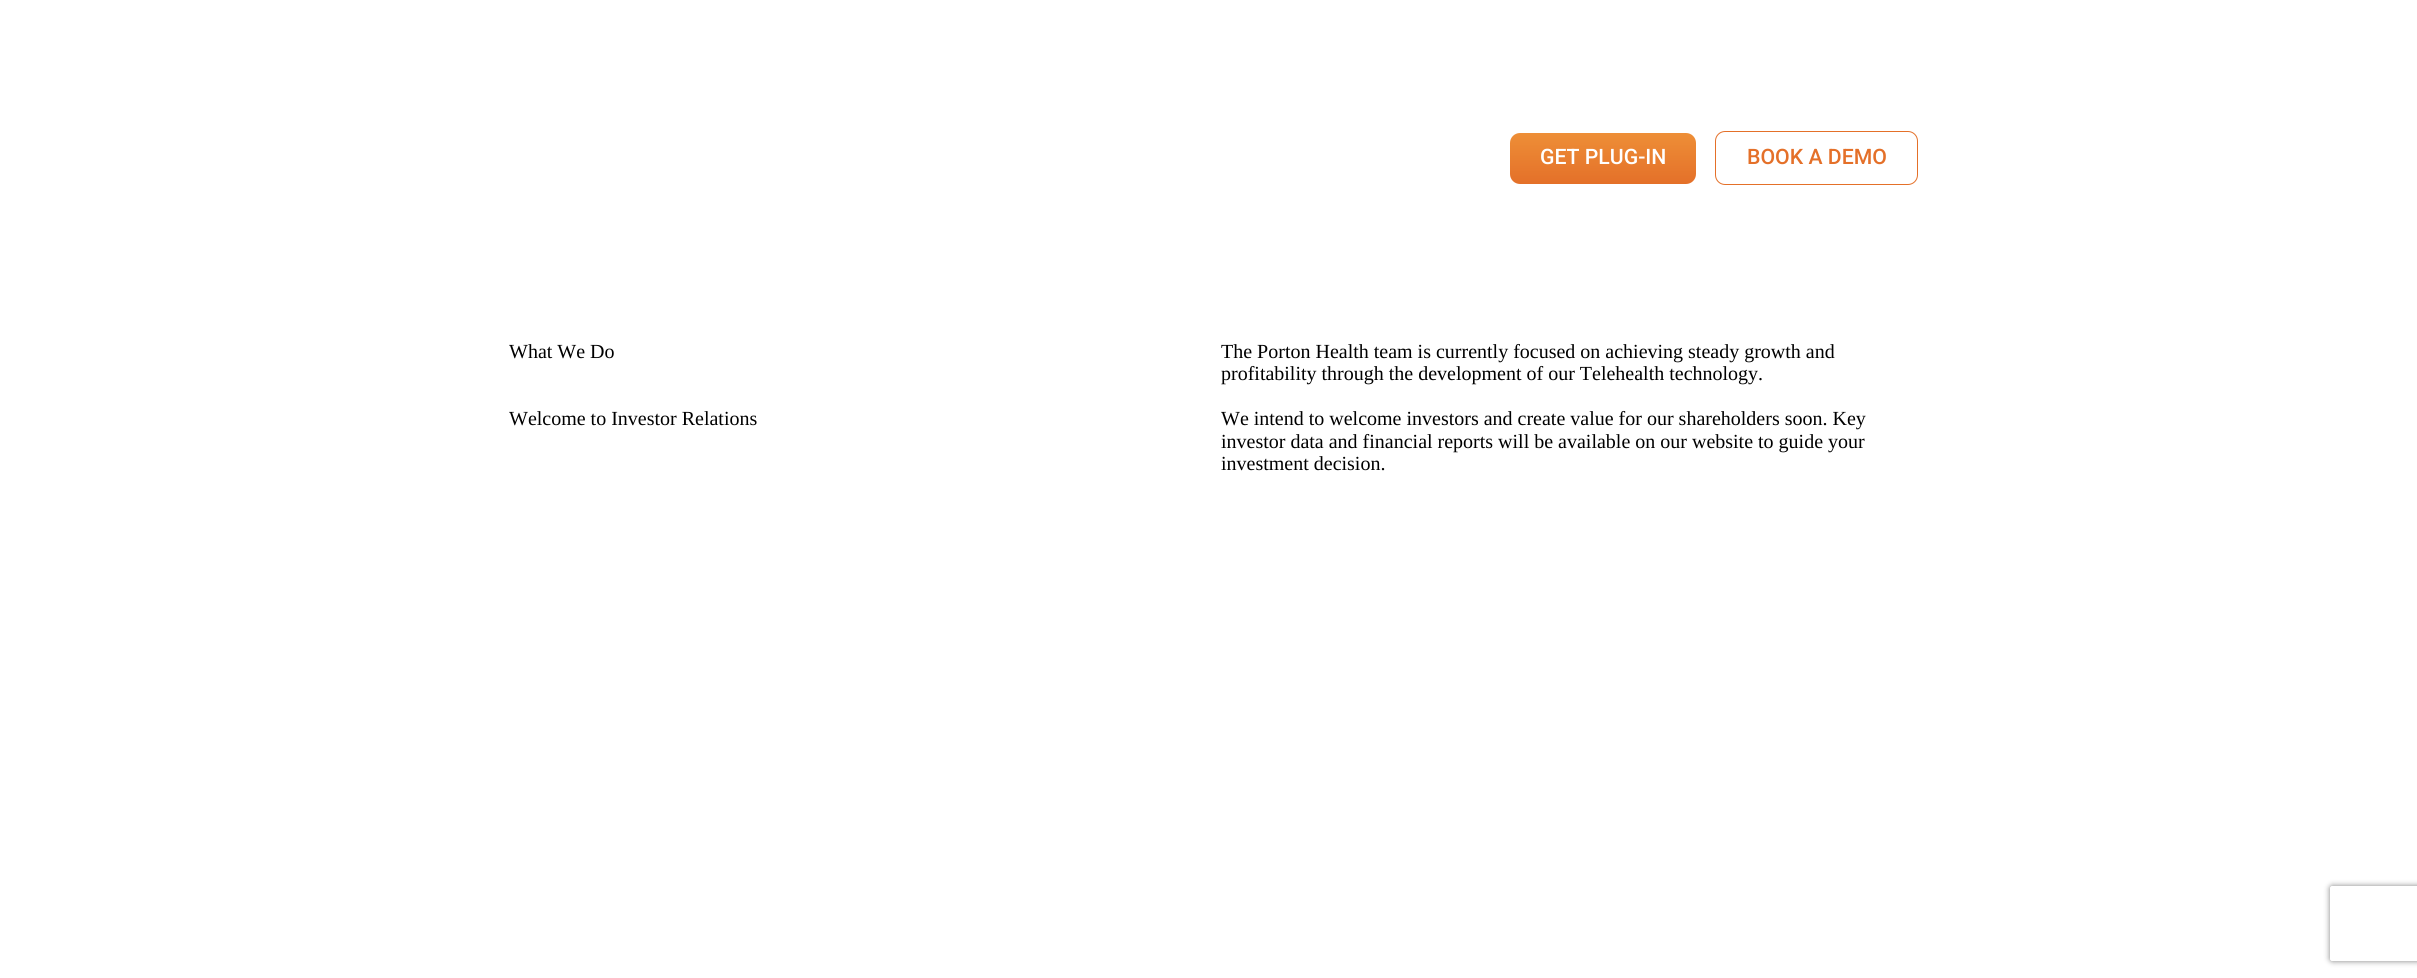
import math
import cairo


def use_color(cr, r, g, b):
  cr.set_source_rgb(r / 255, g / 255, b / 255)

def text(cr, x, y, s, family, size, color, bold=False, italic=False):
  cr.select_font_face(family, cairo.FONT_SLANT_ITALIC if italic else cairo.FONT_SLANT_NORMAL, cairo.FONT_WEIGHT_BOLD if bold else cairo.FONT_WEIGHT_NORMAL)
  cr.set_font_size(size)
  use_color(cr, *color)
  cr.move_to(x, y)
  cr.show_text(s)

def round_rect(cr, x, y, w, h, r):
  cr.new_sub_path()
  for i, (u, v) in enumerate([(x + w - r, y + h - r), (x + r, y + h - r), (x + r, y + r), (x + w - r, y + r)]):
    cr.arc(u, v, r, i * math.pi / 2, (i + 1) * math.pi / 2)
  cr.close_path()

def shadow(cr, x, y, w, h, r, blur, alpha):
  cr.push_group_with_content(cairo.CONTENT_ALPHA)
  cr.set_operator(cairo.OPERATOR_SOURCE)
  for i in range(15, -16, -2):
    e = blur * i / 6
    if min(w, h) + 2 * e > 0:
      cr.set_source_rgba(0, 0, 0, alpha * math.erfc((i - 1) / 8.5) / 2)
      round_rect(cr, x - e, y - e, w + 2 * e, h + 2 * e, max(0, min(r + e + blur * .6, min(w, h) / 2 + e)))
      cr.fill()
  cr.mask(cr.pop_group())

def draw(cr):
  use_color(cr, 255, 255, 255)
  cr.paint()
  gradient = cairo.LinearGradient(1603, 132, 1603, 184)
  gradient.add_color_stop_rgba(0, 0.933, 0.561, 0.216, 1)
  gradient.add_color_stop_rgba(1, 0.894, 0.439, 0.161, 1)
  cr.set_source(gradient)
  round_rect(cr, 1510, 133, 186, 51, 10)
  cr.fill()
  round_rect(cr, 1715.5, 131.5, 202, 53, 9.5)
  use_color(cr, 228, 112, 41)
  cr.set_line_width(1)
  cr.stroke()
  cr.save()
  cr.set_fill_rule(cairo.FILL_RULE_EVEN_ODD)
  cr.new_path()
  cr.move_to(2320, 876)
  cr.line_to(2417, 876)
  cr.line_to(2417, 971)
  cr.line_to(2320, 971)
  cr.close_path()
  cr.move_to(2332.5, 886)
  cr.line_to(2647.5, 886)
  cr.curve_to(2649, 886, 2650, 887, 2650, 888.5)
  cr.line_to(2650, 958.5)
  cr.curve_to(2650, 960, 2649, 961, 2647.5, 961)
  cr.line_to(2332.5, 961)
  cr.curve_to(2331, 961, 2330, 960, 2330, 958.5)
  cr.line_to(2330, 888.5)
  cr.curve_to(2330, 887, 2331, 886, 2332.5, 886)
  cr.close_path()
  cr.clip()
  use_color(cr, 128, 128, 128)
  shadow(cr, 2330, 886, 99, 75, 2.5, 3, 1)
  cr.restore()
  text(cr, 1540, 164, "GET PLUG-IN", "Roboto Medium", 21.25, (255, 255, 255))
  text(cr, 1747, 164, "BOOK A DEMO", "Roboto Medium", 21.25, (228, 112, 41))
  text(cr, 509, 358, "What We Do", "Liberation Serif", 20, (0, 0, 0))
  text(cr, 509, 425, "Welcome to Investor Relations", "Liberation Serif", 20, (0, 0, 0))
  text(cr, 1221, 358, "The Porton Health team is currently focused on achieving steady growth and", "Liberation Serif", 20, (0, 0, 0))
  text(cr, 1221, 380, "profitability through the development of our Telehealth technology.", "Liberation Serif", 20, (0, 0, 0))
  text(cr, 1221, 425, "We intend to welcome investors and create value for our shareholders soon. Key", "Liberation Serif", 20, (0, 0, 0))
  text(cr, 1221, 448, "investor data and financial reports will be available on our website to guide your", "Liberation Serif", 20, (0, 0, 0))
  text(cr, 1221, 470, "investment decision.", "Liberation Serif", 20, (0, 0, 0))


surface = cairo.ImageSurface(cairo.FORMAT_RGB24, 2417, 978)
cr = cairo.Context(surface)
options = cairo.FontOptions()
options.set_hint_metrics(cairo.HINT_METRICS_OFF)
options.set_hint_style(cairo.HINT_STYLE_NONE)
cr.set_font_options(options)
cr.set_miter_limit(4)
draw(cr)
surface.write_to_png("out.png")
